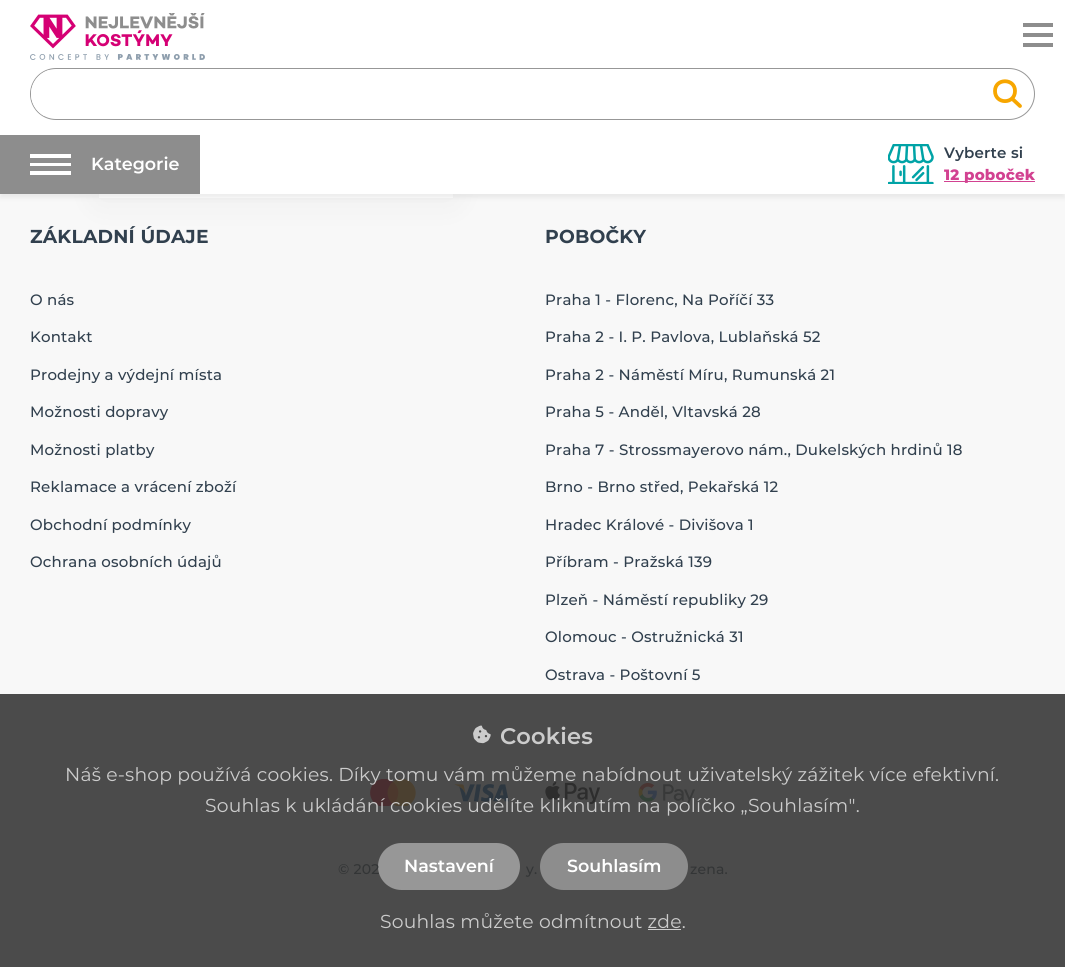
import math
import cairo


def use_color(cr, r, g, b):
  cr.set_source_rgb(r / 255, g / 255, b / 255)

def text(cr, x, y, s, family, size, color, bold=False, italic=False):
  cr.select_font_face(family, cairo.FONT_SLANT_ITALIC if italic else cairo.FONT_SLANT_NORMAL, cairo.FONT_WEIGHT_BOLD if bold else cairo.FONT_WEIGHT_NORMAL)
  cr.set_font_size(size)
  use_color(cr, *color)
  cr.move_to(x, y)
  cr.show_text(s)

def spaced_text(cr, x, y, s, letter, word):
  cr.move_to(x, y)
  for ch in s:
    cr.show_text(ch)
    cr.rel_move_to(letter + word * (ch == ' '), 0)

def box(cr, x, y, w, h, *color):
  use_color(cr, *color)
  cr.rectangle(x, y, w, h)
  cr.fill()

def round_rect(cr, x, y, w, h, r):
  cr.new_sub_path()
  for i, (u, v) in enumerate([(x + w - r, y + h - r), (x + r, y + h - r), (x + r, y + r), (x + w - r, y + r)]):
    cr.arc(u, v, r, i * math.pi / 2, (i + 1) * math.pi / 2)
  cr.close_path()

def shadow(cr, x, y, w, h, r, blur, alpha):
  cr.push_group_with_content(cairo.CONTENT_ALPHA)
  cr.set_operator(cairo.OPERATOR_SOURCE)
  for i in range(15, -16, -2):
    e = blur * i / 6
    if min(w, h) + 2 * e > 0:
      cr.set_source_rgba(0, 0, 0, alpha * math.erfc((i - 1) / 8.5) / 2)
      round_rect(cr, x - e, y - e, w + 2 * e, h + 2 * e, max(0, min(r + e + blur * .6, min(w, h) / 2 + e)))
      cr.fill()
  cr.mask(cr.pop_group())

def picture(cr, path, x, y, w, h):
  cr.save()
  cr.set_source_surface(cairo.ImageSurface.create_from_png(path), x, y)
  cr.rectangle(x, y, w, h)
  cr.fill()
  cr.restore()

def draw(cr):
  use_color(cr, 248, 248, 248)
  cr.paint()
  use_color(cr, 0, 0, 0)
  shadow(cr, 99, 29, 354, 171, 0, 17, 0.05)
  box(cr, 0, 0, 1065, 194, 255, 255, 255)
  box(cr, 99, 194, 354, 4, 255, 255, 255)
  cr.save()
  cr.set_fill_rule(cairo.FILL_RULE_EVEN_ODD)
  cr.new_path()
  cr.move_to(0, 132)
  cr.line_to(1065, 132)
  cr.line_to(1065, 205)
  cr.line_to(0, 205)
  cr.close_path()
  cr.move_to(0, 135)
  cr.line_to(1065, 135)
  cr.line_to(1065, 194)
  cr.line_to(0, 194)
  cr.close_path()
  cr.clip()
  use_color(cr, 220, 220, 220)
  shadow(cr, 0, 139, 1065, 59, 0, 2, 0.5)
  cr.restore()
  box(cr, 1023, 23, 30, 4, 141, 141, 141)
  box(cr, 1023, 33, 30, 4, 141, 141, 141)
  box(cr, 1023, 43, 30, 4, 141, 141, 141)
  box(cr, 0, 135, 200, 59, 141, 141, 141)
  box(cr, 30, 154, 41, 4, 255, 255, 255)
  box(cr, 30, 163, 41, 3, 255, 255, 255)
  box(cr, 30, 171, 41, 4, 255, 255, 255)
  picture(cr, "img_01.png", 30, 13, 175, 47)
  round_rect(cr, 30.5, 68.5, 1004, 51, 25.5)
  use_color(cr, 151, 151, 151)
  cr.set_line_width(1)
  cr.stroke()
  cr.save()
  round_rect(cr, 31, 69, 1003, 50, 25)
  cr.clip()
  use_color(cr, 255, 255, 255)
  round_rect(cr, 31, 70, 950, 46, 6)
  cr.fill()
  cr.restore()
  cr.new_path()
  cr.move_to(1015, 91)
  cr.curve_to(1015, 104.5, 995, 104.5, 995, 91)
  cr.curve_to(995, 78, 1015, 78, 1015, 91)
  cr.close_path()
  cr.move_to(1020, 106)
  cr.line_to(1012.5, 99)
  use_color(cr, 247, 166, 0)
  cr.set_line_width(3.8)
  cr.set_line_cap(cairo.LINE_CAP_ROUND)
  cr.set_line_join(cairo.LINE_JOIN_ROUND)
  cr.stroke()
  picture(cr, "img_02.png", 888, 144, 46, 40)
  box(cr, 944, 181, 91, 1, 210, 66, 145)
  box(cr, 0, 694, 1065, 273, 75, 75, 75)
  picture(cr, "img_03.png", 370, 779, 325, 27)
  picture(cr, "img_04.png", 473, 725, 18, 19)
  use_color(cr, 151, 151, 151)
  round_rect(cr, 378, 843, 142, 47, 23.5)
  cr.fill()
  use_color(cr, 141, 141, 141)
  round_rect(cr, 540, 843, 148, 47, 23.5)
  cr.fill()
  box(cr, 648, 929, 33, 1, 204, 204, 204)
  text(cr, 91, 170, "Kategorie", "Montserrat SemiBold", 17.5, (255, 255, 255))
  cr.set_font_size(15)
  use_color(cr, 49, 64, 78)
  spaced_text(cr, 944, 158, "Vyberte si", 0.2, 0)
  cr.select_font_face("Montserrat ExtraBold")
  use_color(cr, 210, 66, 145)
  spaced_text(cr, 944, 180, "12 poboček", 0.2, 0)
  cr.select_font_face("Montserrat", cairo.FONT_SLANT_NORMAL, cairo.FONT_WEIGHT_BOLD)
  cr.set_font_size(18.75)
  use_color(cr, 49, 64, 78)
  spaced_text(cr, 30, 243, "ZÁKLADNÍ ÚDAJE", 0.2, 0)
  cr.select_font_face("Montserrat Medium")
  cr.set_font_size(15)
  spaced_text(cr, 30, 305, "O nás", 0.2, 0)
  spaced_text(cr, 30, 342, "Kontakt", 0.2, 0)
  spaced_text(cr, 30, 380, "Prodejny a výdejní místa", 0.2, 0)
  spaced_text(cr, 30, 417, "Možnosti dopravy", 0.2, 0)
  spaced_text(cr, 30, 455, "Možnosti platby", 0.2, 0)
  spaced_text(cr, 30, 492, "Reklamace a vrácení zboží", 0.2, 0)
  spaced_text(cr, 30, 530, "Obchodní podmínky", 0.2, 0)
  spaced_text(cr, 30, 567, "Ochrana osobních údajů", 0.2, 0)
  cr.select_font_face("Montserrat", cairo.FONT_SLANT_NORMAL, cairo.FONT_WEIGHT_BOLD)
  cr.set_font_size(18.75)
  spaced_text(cr, 545, 243, "POBOČKY", 0.2, 0)
  cr.select_font_face("Montserrat Medium")
  cr.set_font_size(15)
  spaced_text(cr, 545, 305, "Praha 1 - Florenc, Na Poříčí 33", 0.2, 0)
  spaced_text(cr, 545, 342, "Praha 2 - I. P. Pavlova, Lublaňská 52", 0.2, 0)
  spaced_text(cr, 545, 380, "Praha 2 - Náměstí Míru, Rumunská 21", 0.2, 0)
  spaced_text(cr, 545, 417, "Praha 5 - Anděl, Vltavská 28", 0.2, 0)
  spaced_text(cr, 545, 455, "Praha 7 - Strossmayerovo nám., Dukelských hrdinů 18", 0.2, 0)
  spaced_text(cr, 545, 492, "Brno - Brno střed, Pekařská 12", 0.2, 0)
  spaced_text(cr, 545, 530, "Hradec Králové - Divišova 1", 0.2, 0)
  spaced_text(cr, 545, 567, "Příbram - Pražská 139", 0.2, 0)
  spaced_text(cr, 545, 605, "Plzeň - Náměstí republiky 29", 0.2, 0)
  spaced_text(cr, 545, 642, "Olomouc - Ostružnická 31", 0.2, 0)
  spaced_text(cr, 545, 680, "Ostrava - Poštovní 5", 0.2, 0)
  cr.set_font_size(14)
  use_color(cr, 51, 53, 54)
  spaced_text(cr, 338, 874, "© 202", 0.2, 0)
  spaced_text(cr, 526, 874, "y.", 0.2, 0)
  spaced_text(cr, 690, 874, "zena.", 0.2, 0)
  cr.select_font_face("Montserrat SemiBold")
  cr.set_font_size(22.5)
  use_color(cr, 204, 204, 204)
  spaced_text(cr, 500, 744, "Cookies", 0.2, 0)
  cr.select_font_face("Montserrat")
  cr.set_font_size(18.75)
  spaced_text(cr, 65, 781, "Náš e-shop používá cookies. Díky tomu vám můžeme nabídnout uživatelský zážitek více efektivní.", 0.2, 0)
  spaced_text(cr, 205, 812, "Souhlas k ukládání cookies udělíte kliknutím na políčko „Souhlasím\".", 0.2, 0)
  text(cr, 404, 872, "Nastavení", "Montserrat SemiBold", 17.5, (255, 255, 255))
  text(cr, 567, 872, "Souhlasím", "Montserrat SemiBold", 17.5, (255, 255, 255))
  cr.select_font_face("Montserrat")
  cr.set_font_size(18.75)
  use_color(cr, 204, 204, 204)
  spaced_text(cr, 380, 928, "Souhlas můžete odmítnout zde.", 0.2, 0)


surface = cairo.ImageSurface(cairo.FORMAT_RGB24, 1065, 967)
cr = cairo.Context(surface)
options = cairo.FontOptions()
options.set_hint_metrics(cairo.HINT_METRICS_OFF)
options.set_hint_style(cairo.HINT_STYLE_NONE)
cr.set_font_options(options)
cr.set_miter_limit(4)
draw(cr)
surface.write_to_png("out.png")
